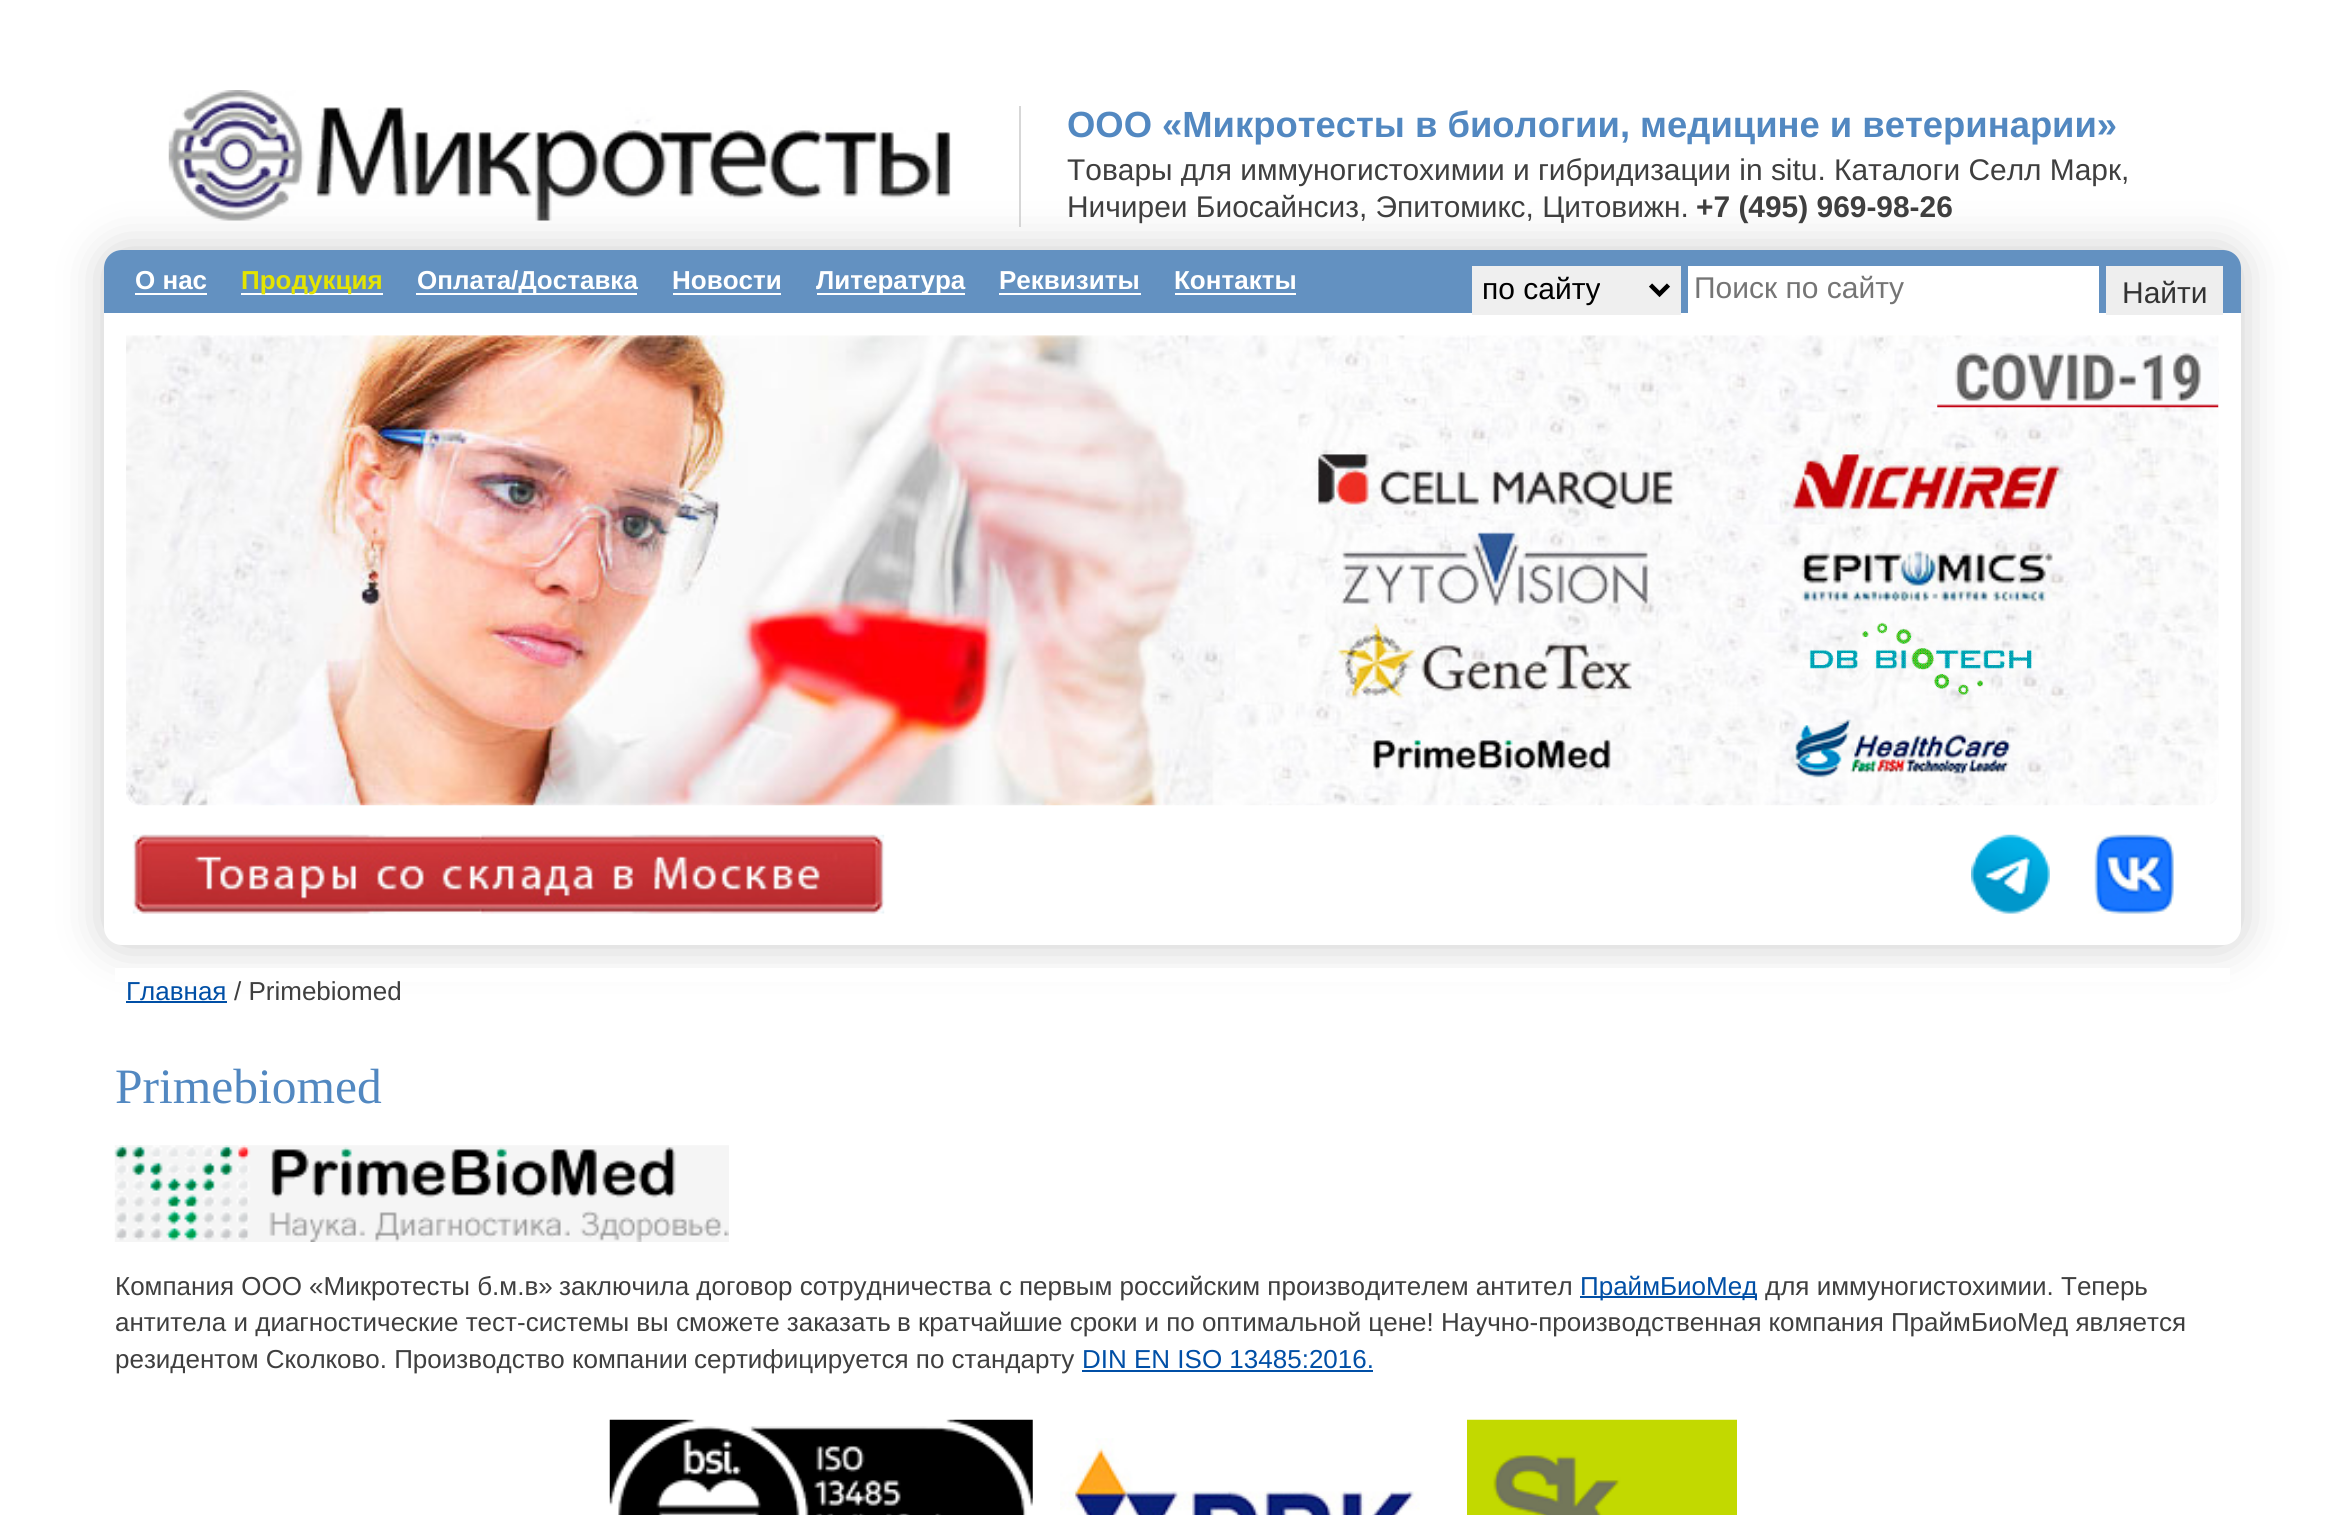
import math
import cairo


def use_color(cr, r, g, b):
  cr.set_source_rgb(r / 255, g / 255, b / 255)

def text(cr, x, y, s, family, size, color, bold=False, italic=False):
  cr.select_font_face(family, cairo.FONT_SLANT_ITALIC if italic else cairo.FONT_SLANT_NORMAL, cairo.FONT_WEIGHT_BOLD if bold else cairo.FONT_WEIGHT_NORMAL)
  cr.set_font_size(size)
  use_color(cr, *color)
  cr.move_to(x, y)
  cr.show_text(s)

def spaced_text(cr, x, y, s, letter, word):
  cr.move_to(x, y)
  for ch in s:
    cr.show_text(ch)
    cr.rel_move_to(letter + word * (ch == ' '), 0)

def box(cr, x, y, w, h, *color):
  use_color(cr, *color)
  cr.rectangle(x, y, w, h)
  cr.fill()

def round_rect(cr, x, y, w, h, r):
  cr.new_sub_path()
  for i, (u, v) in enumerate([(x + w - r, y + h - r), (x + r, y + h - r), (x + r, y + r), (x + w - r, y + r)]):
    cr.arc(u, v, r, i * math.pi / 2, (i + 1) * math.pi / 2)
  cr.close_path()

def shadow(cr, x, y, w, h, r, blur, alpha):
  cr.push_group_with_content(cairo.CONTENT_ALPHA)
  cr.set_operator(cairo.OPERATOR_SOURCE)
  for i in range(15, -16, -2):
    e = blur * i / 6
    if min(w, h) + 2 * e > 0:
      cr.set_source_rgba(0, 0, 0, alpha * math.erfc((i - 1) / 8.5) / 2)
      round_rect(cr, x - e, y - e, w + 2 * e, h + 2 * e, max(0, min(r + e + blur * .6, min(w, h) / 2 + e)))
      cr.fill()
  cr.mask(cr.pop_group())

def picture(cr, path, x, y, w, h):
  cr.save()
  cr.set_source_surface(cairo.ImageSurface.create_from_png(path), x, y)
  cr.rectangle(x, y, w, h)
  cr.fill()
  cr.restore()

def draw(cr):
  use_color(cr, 255, 255, 255)
  cr.paint()
  picture(cr, "img_01.png", 168, 90, 783, 131)
  box(cr, 1019, 106, 2, 121, 215, 215, 215)
  use_color(cr, 204, 204, 204)
  shadow(cr, 104, 250, 2137, 695, 18, 22.5, 1)
  use_color(cr, 255, 255, 255)
  round_rect(cr, 104, 250, 2137, 695, 18)
  cr.fill()
  use_color(cr, 99, 145, 193)
  cr.new_path()
  cr.move_to(122, 250)
  cr.line_to(2223, 250)
  cr.curve_to(2233, 250, 2241, 258, 2241, 268)
  cr.line_to(2241, 313)
  cr.line_to(104, 313)
  cr.line_to(104, 268)
  cr.curve_to(104, 258, 112, 250, 122, 250)
  cr.close_path()
  cr.fill()
  box(cr, 135, 293, 72, 2, 255, 255, 255)
  box(cr, 241, 293, 142, 2, 255, 255, 255)
  box(cr, 416, 293, 221, 2, 255, 255, 255)
  box(cr, 673, 293, 108, 2, 255, 255, 255)
  box(cr, 817, 293, 148, 2, 255, 255, 255)
  box(cr, 999, 293, 142, 2, 255, 255, 255)
  box(cr, 1175, 293, 121, 2, 255, 255, 255)
  box(cr, 1472, 266, 209, 49, 239, 239, 239)
  cr.new_path()
  cr.move_to(1650.5, 285)
  cr.line_to(1659.5, 294)
  cr.line_to(1668.5, 285)
  use_color(cr, 0, 0, 0)
  cr.set_line_width(4.5)
  cr.stroke()
  box(cr, 1688, 266, 411, 47, 255, 255, 255)
  box(cr, 2106, 266, 117, 49, 238, 238, 238)
  picture(cr, "img_02.png", 126, 335, 2093, 471)
  picture(cr, "img_03.png", 1937, 346, 282, 62)
  picture(cr, "img_04.png", 1809, 622, 223, 73)
  picture(cr, "img_05.png", 1372, 738, 239, 32)
  picture(cr, "img_06.png", 1793, 719, 218, 59)
  picture(cr, "img_07.png", 132, 834, 753, 80)
  picture(cr, "img_08.png", 1971, 834, 79, 80)
  picture(cr, "img_09.png", 2094, 834, 80, 80)
  box(cr, 115, 968, 2115, 14, 255, 255, 255)
  box(cr, 126, 1001, 101, 2, 0, 79, 166)
  picture(cr, "img_10.png", 114, 1145, 615, 97)
  box(cr, 1580, 1296, 177, 2, 0, 79, 166)
  box(cr, 1082, 1370, 291, 2, 0, 79, 166)
  picture(cr, "img_11.png", 609, 1419, 424, 96)
  picture(cr, "img_12.png", 1060, 1438, 360, 77)
  picture(cr, "img_13.png", 1467, 1419, 270, 96)
  text(cr, 1067, 137, "ООО «Микротесты в биологии, медицине и ветеринарии»", "Liberation Sans", 36.4, (82, 136, 193), bold=True)
  text(cr, 1067, 180, "Товары для иммуногистохимии и гибридизации in situ. Каталоги Селл Марк,", "Liberation Sans", 29.9, (63, 63, 63))
  text(cr, 1067, 217, "Ничиреи Биосайнсиз, Эпитомикс, Цитовижн.", "Liberation Sans", 29.9, (63, 63, 63))
  text(cr, 1696, 217, "+7 (495) 969-98-26", "Liberation Sans", 29.9, (63, 63, 63), bold=True)
  text(cr, 135, 289, "О нас", "Liberation Sans", 26, (255, 255, 255), bold=True)
  text(cr, 241, 289, "Продукция", "Liberation Sans", 26, (228, 228, 1), bold=True)
  text(cr, 417, 289, "Оплата/Доставка", "Liberation Sans", 26, (255, 255, 255), bold=True)
  text(cr, 672, 289, "Новости", "Liberation Sans", 26, (255, 255, 255), bold=True)
  text(cr, 816, 289, "Литература", "Liberation Sans", 26, (255, 255, 255), bold=True)
  text(cr, 999, 289, "Реквизиты", "Liberation Sans", 26, (255, 255, 255), bold=True)
  text(cr, 1174, 289, "Контакты", "Liberation Sans", 26, (255, 255, 255), bold=True)
  text(cr, 1482, 299, "по сайту", "Liberation Sans", 30, (0, 0, 0))
  text(cr, 1694, 298, "Поиск по сайту", "Liberation Sans", 30, (117, 117, 117))
  text(cr, 2122, 303, "Найти", "Liberation Sans", 30, (51, 51, 51))
  text(cr, 126, 1000, "Главная", "Liberation Sans", 26, (0, 79, 166))
  text(cr, 234, 1000, "/ Primebiomed", "Liberation Sans", 26, (63, 63, 63))
  text(cr, 115, 1103, "Primebiomed", "Liberation Serif", 49.5, (82, 136, 193))
  text(cr, 115, 1295, "Компания ООО «Микротесты б.м.в»", "Liberation Sans", 26, (63, 63, 63))
  spaced_text(cr, 559, 1295, "заключила договор сотрудничества с первым российским производителем антител", 0, -0.1)
  text(cr, 1580, 1295, "ПраймБиоМед", "Liberation Sans", 26, (0, 79, 166))
  text(cr, 1765, 1295, "для иммуногистохимии. Теперь", "Liberation Sans", 26, (63, 63, 63))
  text(cr, 115, 1331, "антитела и диагностические тест-системы вы сможете заказать", "Liberation Sans", 26, (63, 63, 63))
  spaced_text(cr, 897, 1331, "в кратчайшие сроки и по оптимальной цене! Научно-производственная компания ПраймБиоМед является", 0, -0.1)
  text(cr, 115, 1368, "резидентом Сколково. Производство компании", "Liberation Sans", 26, (63, 63, 63))
  text(cr, 694, 1368, "сертифицируется по стандарту", "Liberation Sans", 26, (63, 63, 63))
  text(cr, 1082, 1368, "DIN EN ISO 13485:2016.", "Liberation Sans", 26, (0, 79, 166))


surface = cairo.ImageSurface(cairo.FORMAT_RGB24, 2343, 1515)
cr = cairo.Context(surface)
options = cairo.FontOptions()
options.set_hint_metrics(cairo.HINT_METRICS_OFF)
options.set_hint_style(cairo.HINT_STYLE_NONE)
cr.set_font_options(options)
cr.set_miter_limit(4)
draw(cr)
surface.write_to_png("out.png")
